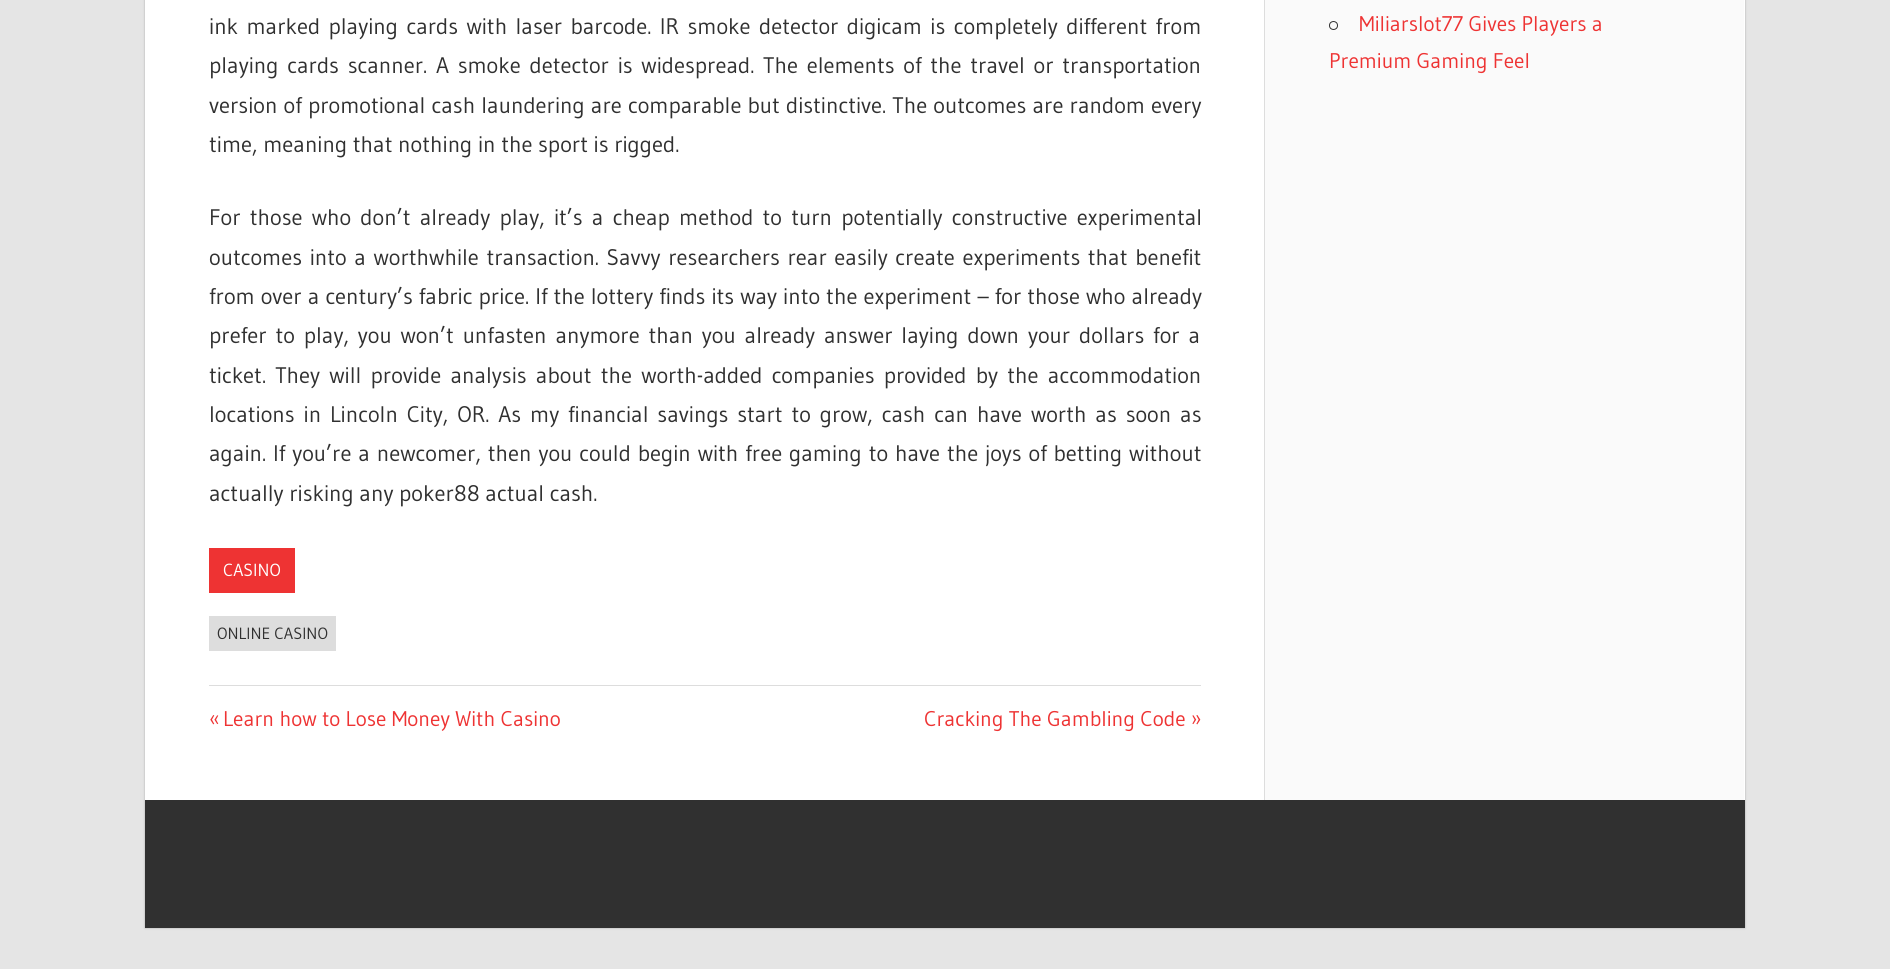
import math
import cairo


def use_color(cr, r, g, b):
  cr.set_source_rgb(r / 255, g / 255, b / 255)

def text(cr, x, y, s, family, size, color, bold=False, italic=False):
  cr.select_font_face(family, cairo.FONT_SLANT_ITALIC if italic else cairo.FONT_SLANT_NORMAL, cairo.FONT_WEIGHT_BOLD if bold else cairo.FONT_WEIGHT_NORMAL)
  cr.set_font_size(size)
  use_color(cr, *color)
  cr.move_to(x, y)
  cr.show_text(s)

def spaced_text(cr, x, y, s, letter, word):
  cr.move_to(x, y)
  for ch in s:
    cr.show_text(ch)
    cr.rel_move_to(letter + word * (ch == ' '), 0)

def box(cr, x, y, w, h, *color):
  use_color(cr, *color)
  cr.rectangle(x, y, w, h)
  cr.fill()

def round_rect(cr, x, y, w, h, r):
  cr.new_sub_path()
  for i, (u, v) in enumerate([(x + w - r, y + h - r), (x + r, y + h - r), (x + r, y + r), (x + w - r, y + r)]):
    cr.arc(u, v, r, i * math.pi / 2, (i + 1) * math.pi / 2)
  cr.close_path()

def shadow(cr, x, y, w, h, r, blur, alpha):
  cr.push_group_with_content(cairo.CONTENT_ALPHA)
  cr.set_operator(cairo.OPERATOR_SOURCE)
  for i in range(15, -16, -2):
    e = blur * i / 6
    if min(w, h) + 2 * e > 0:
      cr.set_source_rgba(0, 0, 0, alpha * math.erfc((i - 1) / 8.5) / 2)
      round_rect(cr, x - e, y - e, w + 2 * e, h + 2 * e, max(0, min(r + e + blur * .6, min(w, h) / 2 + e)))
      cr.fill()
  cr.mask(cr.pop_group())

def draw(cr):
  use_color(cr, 229, 229, 229)
  cr.paint()
  use_color(cr, 170, 170, 170)
  shadow(cr, 145, -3, 1600, 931, 0, 1, 1)
  box(cr, 145, 0, 1600, 800, 255, 255, 255)
  box(cr, 209, 548, 86, 45, 238, 51, 51)
  box(cr, 209, 616, 127, 35, 221, 221, 221)
  box(cr, 209, 685, 992, 1, 221, 221, 221)
  box(cr, 1265, 0, 479, 800, 250, 250, 250)
  box(cr, 1264, 0, 1, 800, 221, 221, 221)
  cr.arc(1333.5, 25.5, 4, 0, 2 * math.pi)
  use_color(cr, 48, 48, 48)
  cr.set_line_width(1)
  cr.stroke()
  box(cr, 145, 800, 1600, 128, 48, 48, 48)
  cr.select_font_face("Gudea")
  cr.set_font_size(22.5)
  spaced_text(cr, 209, 34, "ink marked playing cards with laser barcode. IR smoke detector digicam is completely different from", 0, 2.75)
  spaced_text(cr, 209, 73, "playing cards scanner. A smoke detector is widespread. The elements of the travel or transportation", 0, 3.1)
  spaced_text(cr, 209, 113, "version of promotional cash laundering are comparable but distinctive. The outcomes are random every", 0, 0.5)
  text(cr, 209, 152, "time, meaning that nothing in the sport is rigged.", "Gudea", 22.5, (48, 48, 48))
  spaced_text(cr, 209, 225, "For those who don’t already play, it’s a cheap method to turn potentially constructive experimental", 0, 3.6)
  spaced_text(cr, 209, 265, "outcomes into a worthwhile transaction. Savvy researchers rear easily create experiments that benefit", 0, 2)
  spaced_text(cr, 209, 304, "from over a century’s fabric price. If the lottery finds its way into the experiment – for those who already", 0, 0.4)
  spaced_text(cr, 209, 343, "prefer to play, you won’t unfasten anymore than you already answer laying down your dollars for a", 0, 3.25)
  spaced_text(cr, 209, 383, "ticket. They will provide analysis about the worth-added companies provided by the accommodation", 0, 3.6)
  spaced_text(cr, 209, 422, "locations in Lincoln City, OR. As my financial savings start to grow, cash can have worth as soon as", 0, 3.25)
  spaced_text(cr, 209, 461, "again. If you’re a newcomer, then you could begin with free gaming to have the joys of betting without", 0, 1.25)
  text(cr, 209, 501, "actually risking any poker88 actual cash.", "Gudea", 22.5, (48, 48, 48))
  text(cr, 223, 576, "CASINO", "Gudea", 17.5, (255, 255, 255))
  text(cr, 217, 639, "ONLINE CASINO", "Gudea", 16.25, (48, 48, 48))
  text(cr, 209, 726, "«", "Gudea", 21.25, (238, 51, 51))
  text(cr, 223, 726, "Learn how to Lose Money With Casino", "Gudea", 21.25, (238, 51, 51))
  text(cr, 924, 726, "Cracking The Gambling Code »", "Gudea", 21.25, (238, 51, 51))
  text(cr, 1359, 31, "Miliarslot77 Gives Players a", "Gudea", 21.25, (238, 51, 51))
  text(cr, 1329, 68, "Premium Gaming Feel", "Gudea", 21.25, (238, 51, 51))


surface = cairo.ImageSurface(cairo.FORMAT_RGB24, 1890, 969)
cr = cairo.Context(surface)
options = cairo.FontOptions()
options.set_hint_metrics(cairo.HINT_METRICS_OFF)
options.set_hint_style(cairo.HINT_STYLE_NONE)
cr.set_font_options(options)
cr.set_miter_limit(4)
draw(cr)
surface.write_to_png("out.png")
